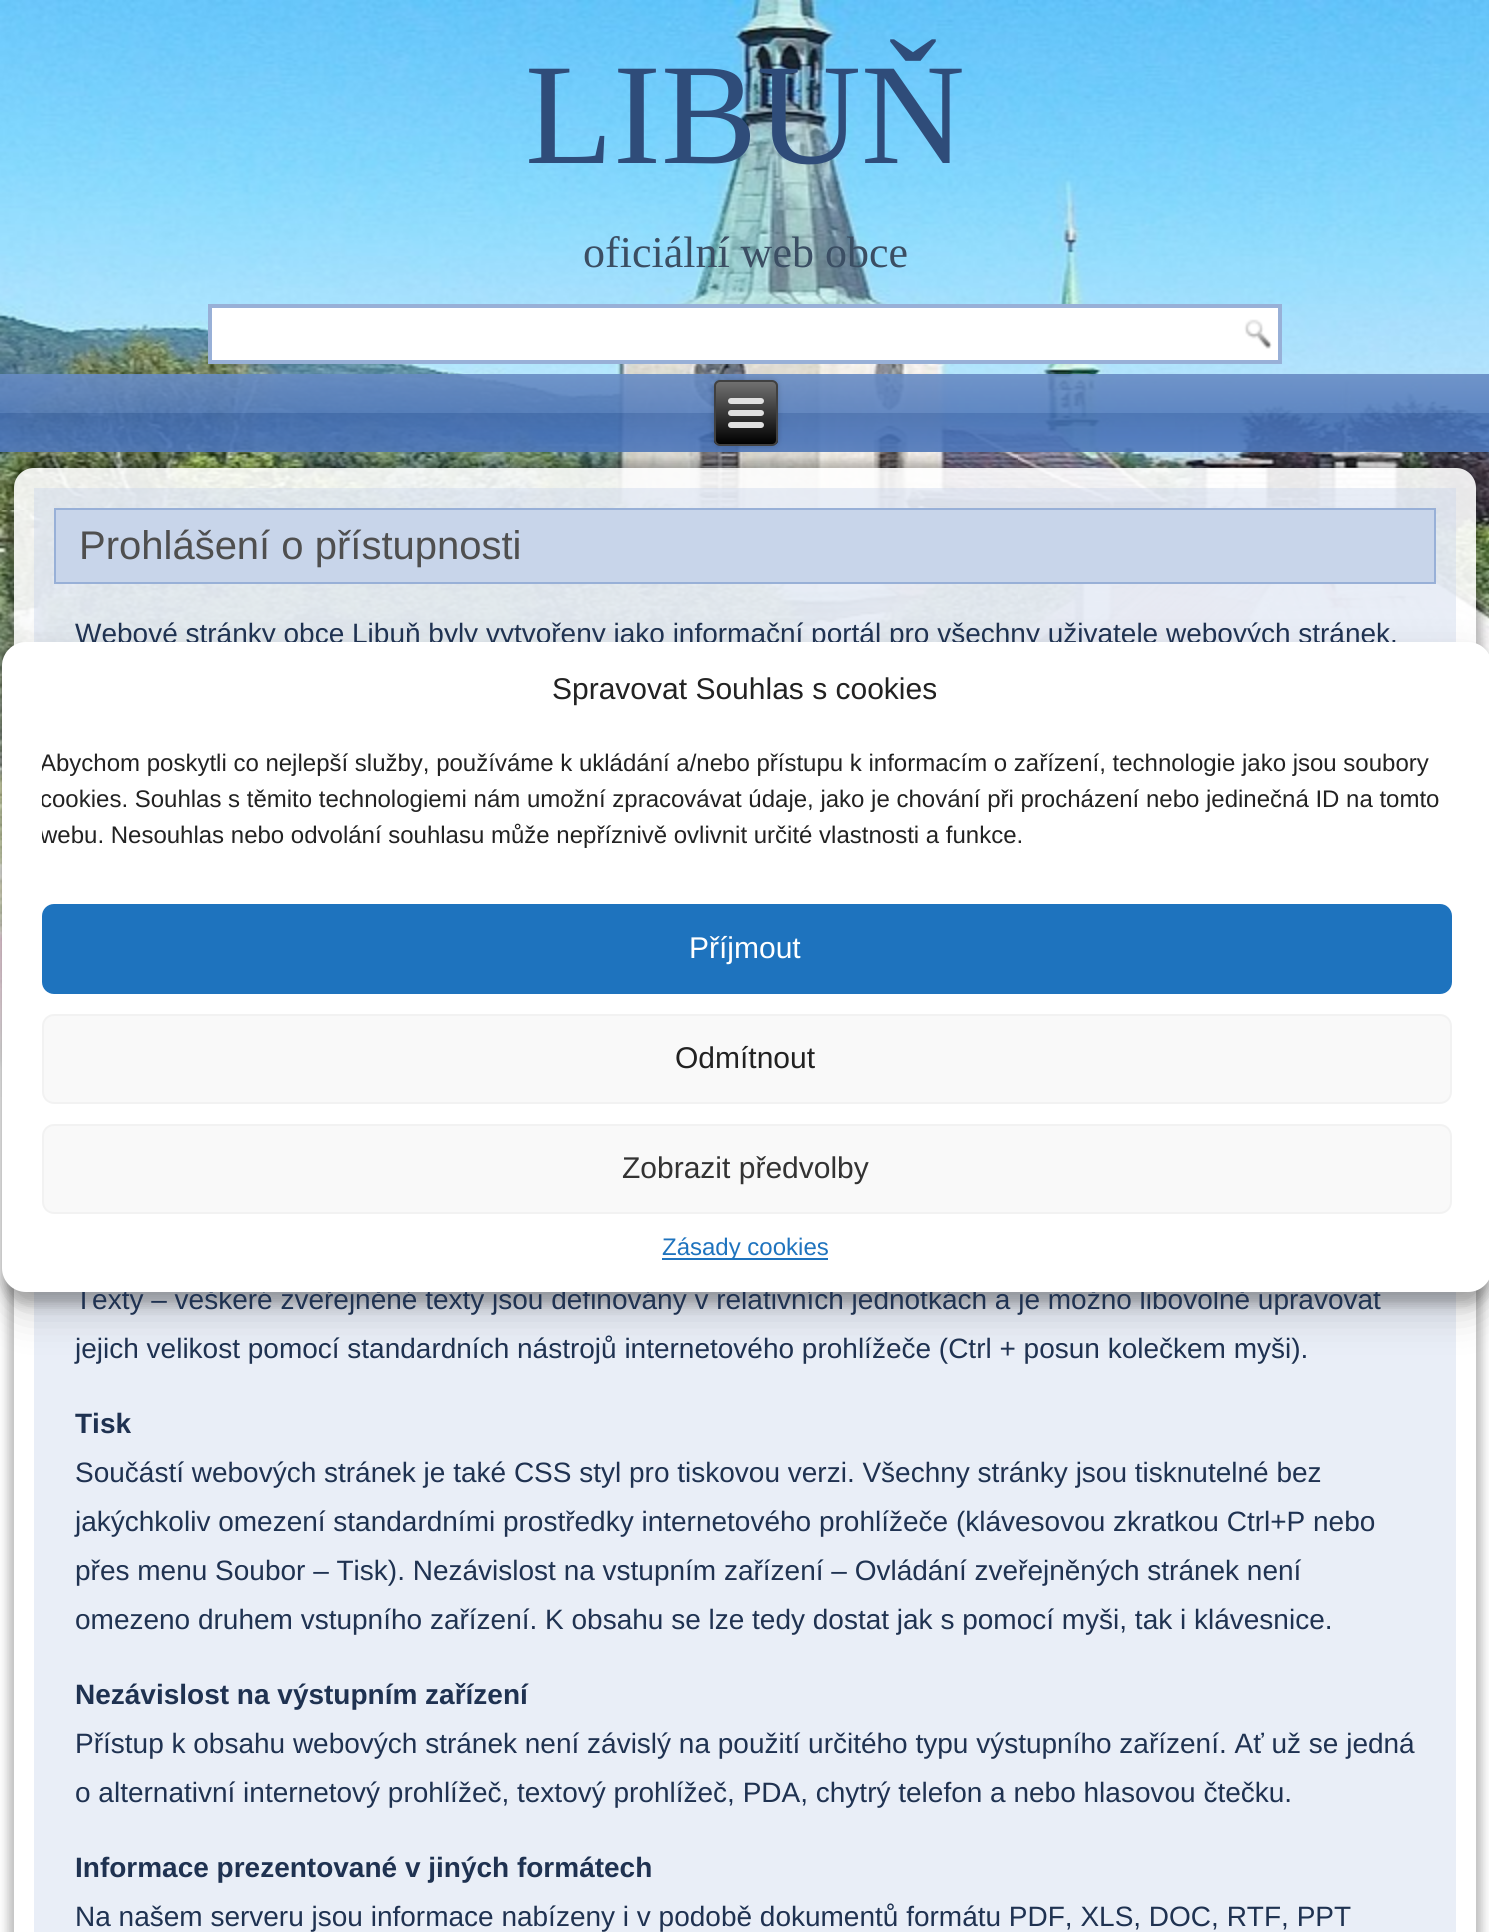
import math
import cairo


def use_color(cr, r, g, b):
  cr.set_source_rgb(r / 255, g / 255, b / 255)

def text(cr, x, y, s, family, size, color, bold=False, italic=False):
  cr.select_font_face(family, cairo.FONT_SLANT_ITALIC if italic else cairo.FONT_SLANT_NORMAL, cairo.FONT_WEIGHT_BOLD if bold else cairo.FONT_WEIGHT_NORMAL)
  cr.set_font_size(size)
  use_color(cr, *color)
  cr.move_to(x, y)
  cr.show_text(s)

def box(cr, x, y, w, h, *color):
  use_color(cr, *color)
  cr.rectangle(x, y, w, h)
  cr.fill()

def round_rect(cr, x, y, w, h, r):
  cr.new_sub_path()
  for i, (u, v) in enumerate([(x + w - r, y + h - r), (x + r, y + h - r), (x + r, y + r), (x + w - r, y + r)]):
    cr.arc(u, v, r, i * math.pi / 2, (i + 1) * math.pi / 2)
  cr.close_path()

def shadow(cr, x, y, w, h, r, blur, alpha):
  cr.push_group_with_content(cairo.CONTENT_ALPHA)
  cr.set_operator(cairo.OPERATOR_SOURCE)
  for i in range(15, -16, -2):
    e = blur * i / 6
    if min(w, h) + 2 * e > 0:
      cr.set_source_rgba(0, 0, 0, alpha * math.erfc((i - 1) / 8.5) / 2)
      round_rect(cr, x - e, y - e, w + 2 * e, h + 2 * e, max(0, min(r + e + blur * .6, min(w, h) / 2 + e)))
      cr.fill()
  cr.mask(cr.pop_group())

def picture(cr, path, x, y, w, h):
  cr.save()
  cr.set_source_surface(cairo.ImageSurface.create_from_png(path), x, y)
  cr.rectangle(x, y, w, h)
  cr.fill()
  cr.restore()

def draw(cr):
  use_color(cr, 255, 255, 255)
  cr.paint()
  picture(cr, "img_01.png", 0, 0, 1489, 1097)
  use_color(cr, 255, 255, 255)
  cr.rectangle(210, 306, 1070, 56)
  cr.fill_preserve()
  use_color(cr, 152, 176, 215)
  cr.set_line_width(4)
  cr.stroke()
  picture(cr, "img_02.png", 1244, 319, 28, 30)
  use_color(cr, 0, 0, 0)
  shadow(cr, 714, 380, 64, 66, 6, 3, 0.2)
  cr.save()
  round_rect(cr, 714, 380, 64, 66, 6)
  cr.clip()
  gradient = cairo.LinearGradient(746, 382, 746, 444)
  gradient.add_color_stop_rgba(0, 0.439, 0.439, 0.439, 1)
  gradient.add_color_stop_rgba(1, 0, 0, 0, 1)
  cr.set_source(gradient)
  cr.rectangle(714, 382, 64, 62)
  cr.fill()
  cr.restore()
  round_rect(cr, 715, 381, 62, 64, 5)
  use_color(cr, 64, 64, 64)
  cr.set_line_width(2)
  cr.stroke()
  use_color(cr, 224, 224, 224)
  round_rect(cr, 728, 398, 36, 6, 3)
  cr.fill()
  round_rect(cr, 728, 410, 36, 6, 3)
  cr.fill()
  round_rect(cr, 728, 422, 36, 6, 3)
  cr.fill()
  cr.save()
  cr.set_fill_rule(cairo.FILL_RULE_EVEN_ODD)
  cr.new_path()
  cr.move_to(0, 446)
  cr.line_to(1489, 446)
  cr.line_to(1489, 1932)
  cr.line_to(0, 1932)
  cr.close_path()
  cr.move_to(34, 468)
  cr.line_to(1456, 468)
  cr.curve_to(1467, 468, 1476, 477, 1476, 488)
  cr.line_to(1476, 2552)
  cr.curve_to(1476, 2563, 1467, 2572, 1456, 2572)
  cr.line_to(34, 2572)
  cr.curve_to(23, 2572, 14, 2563, 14, 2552)
  cr.line_to(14, 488)
  cr.curve_to(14, 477, 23, 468, 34, 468)
  cr.close_path()
  cr.clip()
  use_color(cr, 0, 0, 0)
  shadow(cr, 8, 462, 1474, 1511, 26, 5, 0.26)
  cr.restore()
  cr.set_source_rgba(1, 1, 1, 0.89)
  round_rect(cr, 14, 468, 1462, 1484, 20)
  cr.fill()
  cr.set_source_rgba(0.784, 0.835, 0.918, 0.4)
  cr.rectangle(34, 488, 1422, 1444)
  cr.fill()
  use_color(cr, 200, 213, 234)
  cr.rectangle(55, 509, 1380, 74)
  cr.fill_preserve()
  use_color(cr, 152, 176, 215)
  cr.stroke()
  use_color(cr, 0, 0, 0)
  shadow(cr, 2, 654, 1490, 650, 24, 6, 0.23)
  shadow(cr, 2, 662, 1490, 650, 24, 20, 0.19)
  text(cr, 525, 163, "LIBUŇ", "Liberation Serif", 144, (47, 76, 121))
  text(cr, 583, 267, "oficiální web obce", "Liberation Serif", 44, (59, 78, 99))
  text(cr, 79, 559, "Prohlášení o přístupnosti", "Liberation Sans", 40, (79, 79, 79))
  text(cr, 75, 643, "Webové stránky obce Libuň byly vytvořeny jako informační portál pro všechny uživatele webových stránek.", "Liberation Sans", 28, (31, 50, 81))
  text(cr, 75, 1309, "Texty – veškeré zveřejněné texty jsou definovány v relativních jednotkách a je možno libovolně upravovat", "Liberation Sans", 28, (31, 50, 81))
  text(cr, 75, 1358, "jejich velikost pomocí standardních nástrojů internetového prohlížeče (Ctrl + posun kolečkem myši).", "Liberation Sans", 28, (31, 50, 81))
  text(cr, 75, 1433, "Tisk", "Liberation Sans", 28, (31, 50, 81), bold=True)
  text(cr, 75, 1482, "Součástí webových stránek je také CSS styl pro tiskovou verzi. Všechny stránky jsou tisknutelné bez", "Liberation Sans", 28, (31, 50, 81))
  text(cr, 75, 1531, "jakýchkoliv omezení standardními prostředky internetového prohlížeče (klávesovou zkratkou Ctrl+P nebo", "Liberation Sans", 28, (31, 50, 81))
  text(cr, 75, 1580, "přes menu Soubor – Tisk). Nezávislost na vstupním zařízení – Ovládání zveřejněných stránek není", "Liberation Sans", 28, (31, 50, 81))
  text(cr, 75, 1629, "omezeno druhem vstupního zařízení. K obsahu se lze tedy dostat jak s pomocí myši, tak i klávesnice.", "Liberation Sans", 28, (31, 50, 81))
  text(cr, 75, 1704, "Nezávislost na výstupním zařízení", "Liberation Sans", 28, (31, 50, 81), bold=True)
  text(cr, 75, 1753, "Přístup k obsahu webových stránek není závislý na použití určitého typu výstupního zařízení. Ať už se jedná", "Liberation Sans", 28, (31, 50, 81))
  text(cr, 75, 1802, "o alternativní internetový prohlížeč, textový prohlížeč, PDA, chytrý telefon a nebo hlasovou čtečku.", "Liberation Sans", 28, (31, 50, 81))
  text(cr, 75, 1877, "Informace prezentované v jiných formátech", "Liberation Sans", 28, (31, 50, 81), bold=True)
  text(cr, 75, 1926, "Na našem serveru jsou informace nabízeny i v podobě dokumentů formátu PDF, XLS, DOC, RTF, PPT", "Liberation Sans", 28, (31, 50, 81))
  use_color(cr, 255, 255, 255)
  round_rect(cr, 2, 642, 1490, 650, 24)
  cr.fill()
  text(cr, 552, 699, "Spravovat Souhlas s cookies", "Liberation Sans", 30, (34, 34, 34))
  cr.save()
  cr.rectangle(42, 746, 1410, 118)
  cr.clip()
  text(cr, 40, 771, "Abychom poskytli co nejlepší služby, používáme k ukládání a/nebo přístupu k informacím o zařízení, technologie jako jsou soubory", "Liberation Sans", 24, (34, 34, 34))
  text(cr, 40, 807, "cookies. Souhlas s těmito technologiemi nám umožní zpracovávat údaje, jako je chování při procházení nebo jedinečná ID na tomto", "Liberation Sans", 24, (34, 34, 34))
  text(cr, 40, 843, "webu. Nesouhlas nebo odvolání souhlasu může nepříznivě ovlivnit určité vlastnosti a funkce.", "Liberation Sans", 24, (34, 34, 34))
  cr.restore()
  use_color(cr, 30, 115, 190)
  round_rect(cr, 43, 905, 1408, 88, 11)
  cr.fill_preserve()
  cr.stroke()
  text(cr, 689, 958, "Příjmout", "Liberation Sans", 30, (255, 255, 255))
  use_color(cr, 249, 249, 249)
  round_rect(cr, 43, 1015, 1408, 88, 11)
  cr.fill_preserve()
  use_color(cr, 242, 242, 242)
  cr.stroke()
  text(cr, 675, 1068, "Odmítnout", "Liberation Sans", 30, (34, 34, 34))
  use_color(cr, 249, 249, 249)
  round_rect(cr, 43, 1125, 1408, 88, 11)
  cr.fill_preserve()
  use_color(cr, 242, 242, 242)
  cr.stroke()
  text(cr, 622, 1178, "Zobrazit předvolby", "Liberation Sans", 30, (51, 51, 51))
  box(cr, 662, 1258, 166, 2, 30, 115, 190)
  text(cr, 662, 1255, "Zásady cookies", "Liberation Sans", 24, (30, 115, 190))


surface = cairo.ImageSurface(cairo.FORMAT_RGB24, 1489, 1932)
cr = cairo.Context(surface)
options = cairo.FontOptions()
options.set_hint_metrics(cairo.HINT_METRICS_OFF)
options.set_hint_style(cairo.HINT_STYLE_NONE)
cr.set_font_options(options)
cr.set_miter_limit(4)
draw(cr)
surface.write_to_png("out.png")
